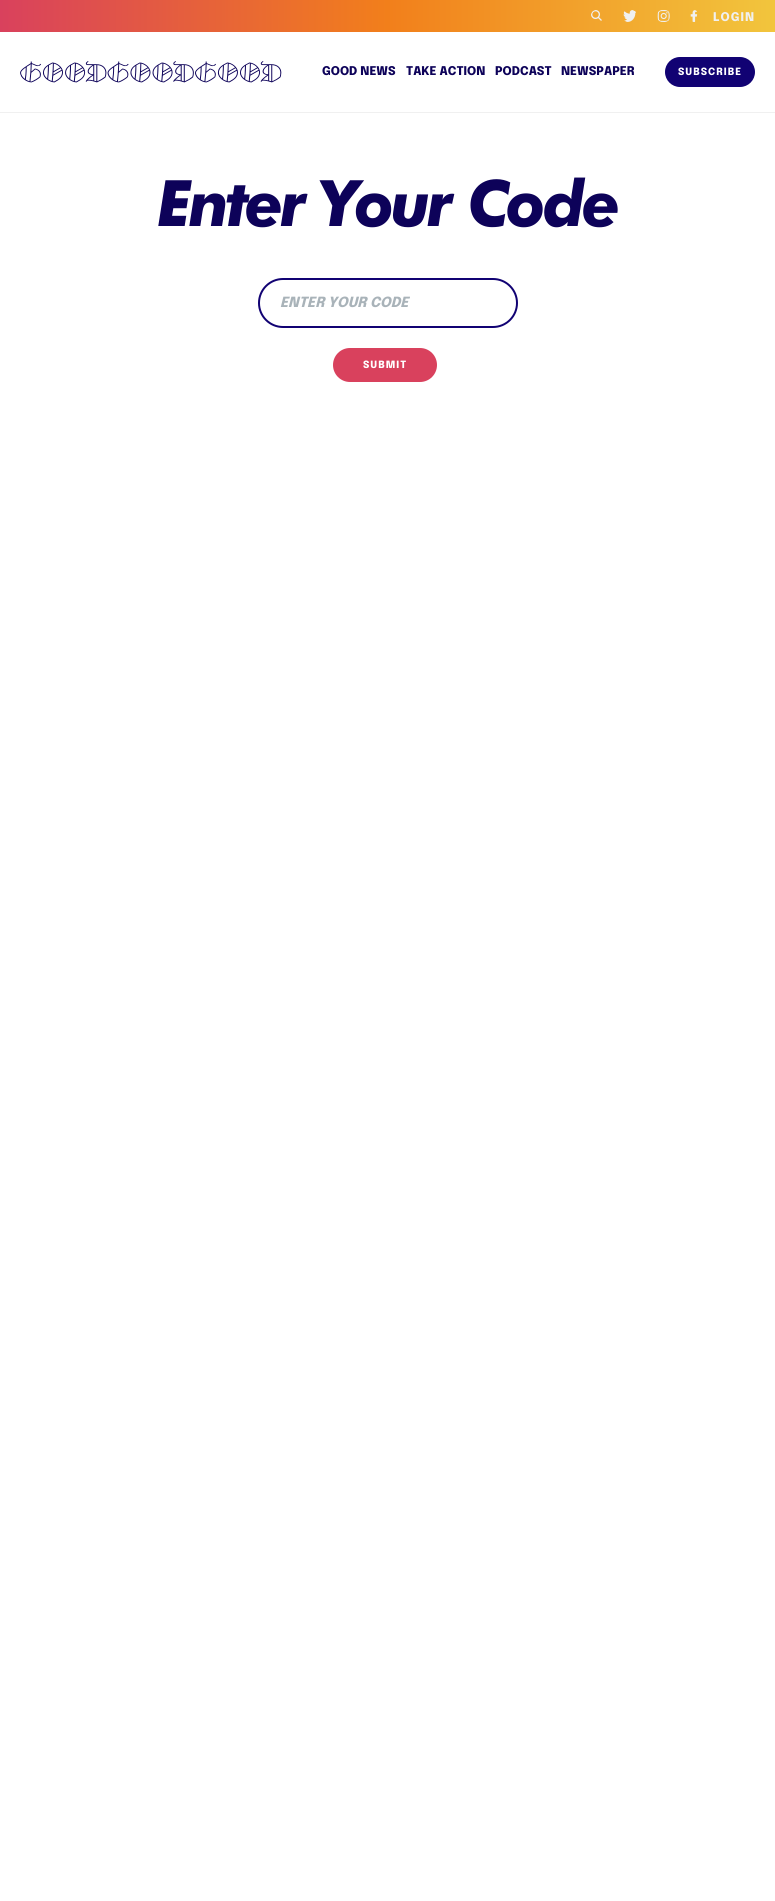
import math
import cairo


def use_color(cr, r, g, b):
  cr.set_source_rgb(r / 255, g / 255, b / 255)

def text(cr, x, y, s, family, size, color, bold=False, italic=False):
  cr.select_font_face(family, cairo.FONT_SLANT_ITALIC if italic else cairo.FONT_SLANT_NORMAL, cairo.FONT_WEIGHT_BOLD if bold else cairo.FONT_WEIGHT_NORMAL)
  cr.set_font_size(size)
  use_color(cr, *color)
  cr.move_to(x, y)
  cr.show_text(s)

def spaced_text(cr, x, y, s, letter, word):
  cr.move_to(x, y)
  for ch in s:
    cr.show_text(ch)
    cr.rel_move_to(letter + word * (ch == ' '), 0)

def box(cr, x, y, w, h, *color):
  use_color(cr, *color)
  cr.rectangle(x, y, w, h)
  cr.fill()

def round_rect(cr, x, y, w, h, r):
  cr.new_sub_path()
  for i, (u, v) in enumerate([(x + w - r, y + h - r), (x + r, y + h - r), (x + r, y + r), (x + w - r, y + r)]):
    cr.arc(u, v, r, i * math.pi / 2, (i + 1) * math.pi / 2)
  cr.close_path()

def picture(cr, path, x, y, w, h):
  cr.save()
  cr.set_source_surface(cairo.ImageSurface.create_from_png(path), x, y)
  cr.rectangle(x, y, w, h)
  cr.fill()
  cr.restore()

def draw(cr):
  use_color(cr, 255, 255, 255)
  cr.paint()
  gradient = cairo.LinearGradient(0, 16, 775, 16)
  gradient.add_color_stop_rgba(0, 0.851, 0.255, 0.365, 1)
  gradient.add_color_stop_rgba(0.5, 0.949, 0.498, 0.106, 1)
  gradient.add_color_stop_rgba(1, 0.949, 0.773, 0.239, 1)
  cr.set_source(gradient)
  cr.rectangle(0, 0, 775, 32)
  cr.fill()
  picture(cr, "img_01.png", 591, 10, 11, 11)
  picture(cr, "img_02.png", 623, 10, 13, 12)
  picture(cr, "img_03.png", 657, 10, 13, 12)
  picture(cr, "img_04.png", 690, 10, 8, 12)
  box(cr, 0, 112, 775, 1, 240, 240, 240)
  picture(cr, "img_05.png", 20, 61, 262, 22)
  use_color(cr, 17, 2, 115)
  round_rect(cr, 665, 57, 90, 30, 15)
  cr.fill()
  round_rect(cr, 259, 279, 258, 48, 24)
  cr.stroke()
  use_color(cr, 217, 65, 93)
  round_rect(cr, 333, 348, 104, 34, 17)
  cr.fill()
  cr.select_font_face("Epilogue ExtraBold")
  cr.set_font_size(12)
  use_color(cr, 240, 240, 240)
  spaced_text(cr, 713, 21, "LOGIN", 1, 0)
  text(cr, 322, 75, "GOOD NEWS", "Epilogue ExtraBold", 12, (13, 2, 89))
  text(cr, 406, 75, "TAKE ACTION", "Epilogue ExtraBold", 12, (13, 2, 89))
  text(cr, 495, 75, "PODCAST", "Epilogue ExtraBold", 12, (13, 2, 89))
  text(cr, 561, 75, "NEWSPAPER", "Epilogue ExtraBold", 12, (13, 2, 89))
  cr.set_font_size(10)
  use_color(cr, 255, 255, 255)
  spaced_text(cr, 678, 75, "SUBSCRIBE", 1, 0)
  cr.select_font_face("Futura", cairo.FONT_SLANT_ITALIC, cairo.FONT_WEIGHT_BOLD)
  cr.set_font_size(64)
  use_color(cr, 13, 2, 89)
  spaced_text(cr, 157, 226, "Enter Your Code", -3, 0)
  text(cr, 280, 307, "ENTER YOUR CODE", "Epilogue ExtraBold", 14, (169, 179, 185), italic=True)
  cr.select_font_face("Epilogue ExtraBold")
  cr.set_font_size(10)
  use_color(cr, 255, 255, 255)
  spaced_text(cr, 363, 368, "SUBMIT", 1, 0)


surface = cairo.ImageSurface(cairo.FORMAT_RGB24, 775, 1901)
cr = cairo.Context(surface)
options = cairo.FontOptions()
options.set_hint_metrics(cairo.HINT_METRICS_OFF)
options.set_hint_style(cairo.HINT_STYLE_NONE)
cr.set_font_options(options)
cr.set_miter_limit(4)
draw(cr)
surface.write_to_png("out.png")
